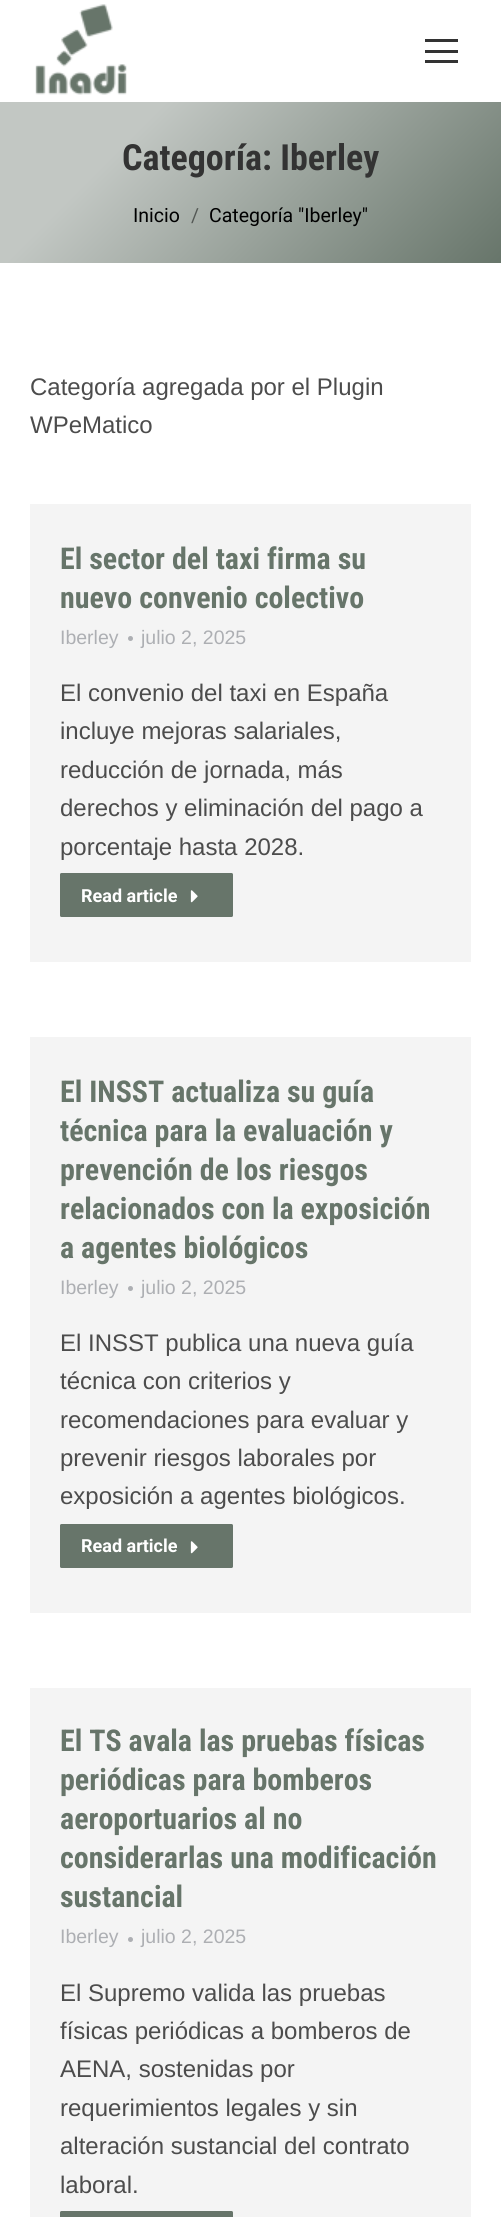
import math
import cairo


def use_color(cr, r, g, b):
  cr.set_source_rgb(r / 255, g / 255, b / 255)

def text(cr, x, y, s, family, size, color, bold=False, italic=False):
  cr.select_font_face(family, cairo.FONT_SLANT_ITALIC if italic else cairo.FONT_SLANT_NORMAL, cairo.FONT_WEIGHT_BOLD if bold else cairo.FONT_WEIGHT_NORMAL)
  cr.set_font_size(size)
  use_color(cr, *color)
  cr.move_to(x, y)
  cr.show_text(s)

def box(cr, x, y, w, h, *color):
  use_color(cr, *color)
  cr.rectangle(x, y, w, h)
  cr.fill()

def round_rect(cr, x, y, w, h, r):
  cr.new_sub_path()
  for i, (u, v) in enumerate([(x + w - r, y + h - r), (x + r, y + h - r), (x + r, y + r), (x + w - r, y + r)]):
    cr.arc(u, v, r, i * math.pi / 2, (i + 1) * math.pi / 2)
  cr.close_path()

def picture(cr, path, x, y, w, h):
  cr.save()
  cr.set_source_surface(cairo.ImageSurface.create_from_png(path), x, y)
  cr.rectangle(x, y, w, h)
  cr.fill()
  cr.restore()

def draw(cr):
  use_color(cr, 255, 255, 255)
  cr.paint()
  picture(cr, "img_01.png", 35, 4, 92, 91)
  box(cr, 425, 39, 33, 3, 51, 51, 51)
  box(cr, 425, 50, 33, 3, 51, 51, 51)
  box(cr, 425, 60, 33, 3, 51, 51, 51)
  gradient = cairo.LinearGradient(85, 17, 416, 348)
  gradient.add_color_stop_rgba(0.25, 0.761, 0.78, 0.765, 1)
  gradient.add_color_stop_rgba(1, 0.404, 0.459, 0.416, 1)
  cr.set_source(gradient)
  cr.rectangle(0, 102, 501, 161)
  cr.fill()
  box(cr, 30, 504, 441, 458, 244, 244, 244)
  use_color(cr, 173, 175, 179)
  cr.arc(130.5, 638.5, 2.5, 0, 2 * math.pi)
  cr.fill()
  use_color(cr, 103, 117, 106)
  round_rect(cr, 60, 873, 173, 44, 1.5)
  cr.fill()
  picture(cr, "img_02.png", 190, 890, 8, 13)
  box(cr, 30, 1037, 441, 576, 244, 244, 244)
  use_color(cr, 173, 175, 179)
  cr.arc(130.5, 1288.5, 2.5, 0, 2 * math.pi)
  cr.fill()
  use_color(cr, 103, 117, 106)
  round_rect(cr, 60, 1524, 173, 44, 1.5)
  cr.fill()
  picture(cr, "img_02.png", 190, 1541, 8, 13)
  box(cr, 30, 1688, 441, 529, 244, 244, 244)
  use_color(cr, 173, 175, 179)
  cr.arc(130.5, 1939.5, 2.5, 0, 2 * math.pi)
  cr.fill()
  use_color(cr, 103, 117, 106)
  round_rect(cr, 60, 2211, 173, 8, 1.5)
  cr.fill()
  text(cr, 122, 170, "Categoría: Iberley", "Roboto Condensed", 36, (51, 51, 51), bold=True)
  text(cr, 133, 222, "Inicio", "Roboto", 19.5, (0, 0, 0))
  text(cr, 191, 222, "/", "Roboto", 19.5, (84, 88, 85))
  text(cr, 209, 222, "Categoría \"Iberley\"", "Roboto", 19.5, (0, 0, 0))
  text(cr, 30, 395, "Categoría agregada por el Plugin", "Liberation Sans", 24, (76, 76, 76))
  text(cr, 30, 433, "WPeMatico", "Liberation Sans", 24, (76, 76, 76))
  text(cr, 60, 569, "El sector del taxi firma su", "Roboto Condensed", 30, (103, 117, 106), bold=True)
  text(cr, 60, 608, "nuevo convenio colectivo", "Roboto Condensed", 30, (103, 117, 106), bold=True)
  text(cr, 60, 644, "Iberley", "Liberation Sans", 19.5, (173, 175, 179))
  text(cr, 141, 644, "julio 2, 2025", "Liberation Sans", 19.5, (173, 175, 179))
  text(cr, 60, 701, "El convenio del taxi en España", "Liberation Sans", 24, (76, 76, 76))
  text(cr, 60, 739, "incluye mejoras salariales,", "Liberation Sans", 24, (76, 76, 76))
  text(cr, 60, 778, "reducción de jornada, más", "Liberation Sans", 24, (76, 76, 76))
  text(cr, 60, 816, "derechos y eliminación del pago a", "Liberation Sans", 24, (76, 76, 76))
  text(cr, 60, 855, "porcentaje hasta 2028.", "Liberation Sans", 24, (76, 76, 76))
  text(cr, 81, 902, "Read article", "Roboto", 18, (255, 255, 255), bold=True)
  text(cr, 60, 1102, "El INSST actualiza su guía", "Roboto Condensed", 30, (103, 117, 106), bold=True)
  text(cr, 60, 1141, "técnica para la evaluación y", "Roboto Condensed", 30, (103, 117, 106), bold=True)
  text(cr, 60, 1180, "prevención de los riesgos", "Roboto Condensed", 30, (103, 117, 106), bold=True)
  text(cr, 60, 1219, "relacionados con la exposición", "Roboto Condensed", 30, (103, 117, 106), bold=True)
  text(cr, 60, 1258, "a agentes biológicos", "Roboto Condensed", 30, (103, 117, 106), bold=True)
  text(cr, 60, 1294, "Iberley", "Liberation Sans", 19.5, (173, 175, 179))
  text(cr, 141, 1294, "julio 2, 2025", "Liberation Sans", 19.5, (173, 175, 179))
  text(cr, 60, 1351, "El INSST publica una nueva guía", "Liberation Sans", 24, (76, 76, 76))
  text(cr, 60, 1389, "técnica con criterios y", "Liberation Sans", 24, (76, 76, 76))
  text(cr, 60, 1428, "recomendaciones para evaluar y", "Liberation Sans", 24, (76, 76, 76))
  text(cr, 60, 1466, "prevenir riesgos laborales por", "Liberation Sans", 24, (76, 76, 76))
  text(cr, 60, 1504, "exposición a agentes biológicos.", "Liberation Sans", 24, (76, 76, 76))
  text(cr, 81, 1552, "Read article", "Roboto", 18, (255, 255, 255), bold=True)
  text(cr, 60, 1751, "El TS avala las pruebas físicas", "Roboto Condensed", 30, (103, 117, 106), bold=True)
  text(cr, 60, 1790, "periódicas para bomberos", "Roboto Condensed", 30, (103, 117, 106), bold=True)
  text(cr, 60, 1829, "aeroportuarios al no", "Roboto Condensed", 30, (103, 117, 106), bold=True)
  text(cr, 60, 1868, "considerarlas una modificación", "Roboto Condensed", 30, (103, 117, 106), bold=True)
  text(cr, 60, 1907, "sustancial", "Roboto Condensed", 30, (103, 117, 106), bold=True)
  text(cr, 60, 1943, "Iberley", "Liberation Sans", 19.5, (173, 175, 179))
  text(cr, 141, 1943, "julio 2, 2025", "Liberation Sans", 19.5, (173, 175, 179))
  text(cr, 60, 2001, "El Supremo valida las pruebas", "Liberation Sans", 24, (76, 76, 76))
  text(cr, 60, 2039, "físicas periódicas a bomberos de", "Liberation Sans", 24, (76, 76, 76))
  text(cr, 60, 2077, "AENA, sostenidas por", "Liberation Sans", 24, (76, 76, 76))
  text(cr, 60, 2116, "requerimientos legales y sin", "Liberation Sans", 24, (76, 76, 76))
  text(cr, 60, 2154, "alteración sustancial del contrato", "Liberation Sans", 24, (76, 76, 76))
  text(cr, 60, 2193, "laboral.", "Liberation Sans", 24, (76, 76, 76))


surface = cairo.ImageSurface(cairo.FORMAT_RGB24, 501, 2217)
cr = cairo.Context(surface)
options = cairo.FontOptions()
options.set_hint_metrics(cairo.HINT_METRICS_OFF)
options.set_hint_style(cairo.HINT_STYLE_NONE)
cr.set_font_options(options)
cr.set_miter_limit(4)
draw(cr)
surface.write_to_png("out.png")
